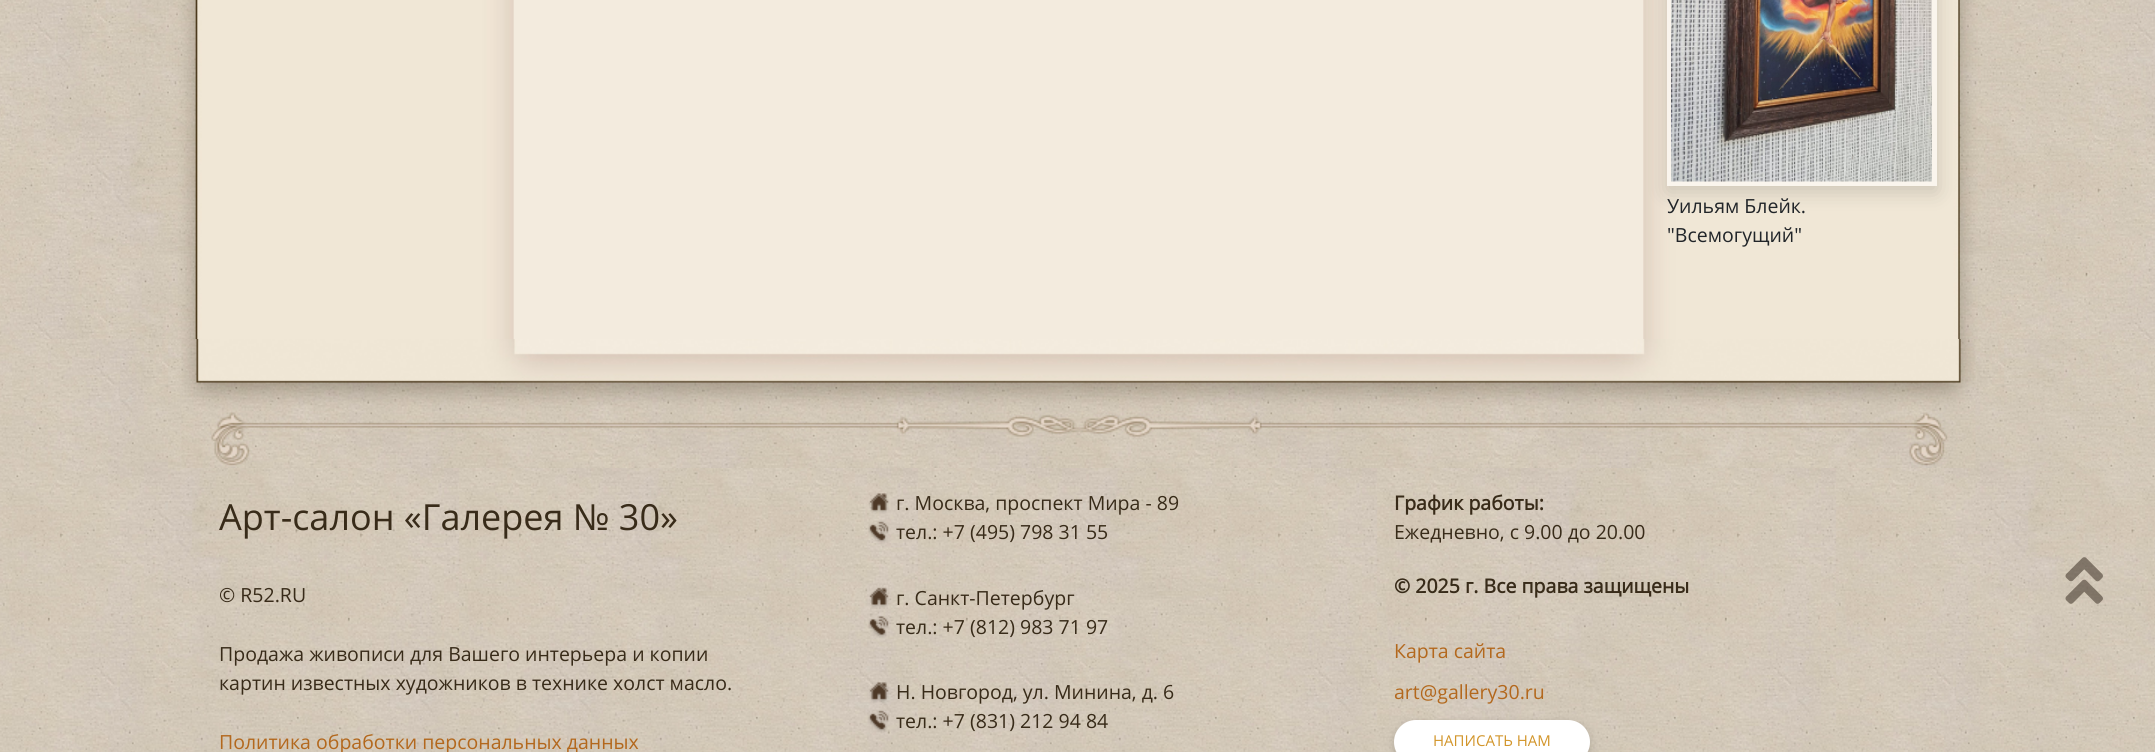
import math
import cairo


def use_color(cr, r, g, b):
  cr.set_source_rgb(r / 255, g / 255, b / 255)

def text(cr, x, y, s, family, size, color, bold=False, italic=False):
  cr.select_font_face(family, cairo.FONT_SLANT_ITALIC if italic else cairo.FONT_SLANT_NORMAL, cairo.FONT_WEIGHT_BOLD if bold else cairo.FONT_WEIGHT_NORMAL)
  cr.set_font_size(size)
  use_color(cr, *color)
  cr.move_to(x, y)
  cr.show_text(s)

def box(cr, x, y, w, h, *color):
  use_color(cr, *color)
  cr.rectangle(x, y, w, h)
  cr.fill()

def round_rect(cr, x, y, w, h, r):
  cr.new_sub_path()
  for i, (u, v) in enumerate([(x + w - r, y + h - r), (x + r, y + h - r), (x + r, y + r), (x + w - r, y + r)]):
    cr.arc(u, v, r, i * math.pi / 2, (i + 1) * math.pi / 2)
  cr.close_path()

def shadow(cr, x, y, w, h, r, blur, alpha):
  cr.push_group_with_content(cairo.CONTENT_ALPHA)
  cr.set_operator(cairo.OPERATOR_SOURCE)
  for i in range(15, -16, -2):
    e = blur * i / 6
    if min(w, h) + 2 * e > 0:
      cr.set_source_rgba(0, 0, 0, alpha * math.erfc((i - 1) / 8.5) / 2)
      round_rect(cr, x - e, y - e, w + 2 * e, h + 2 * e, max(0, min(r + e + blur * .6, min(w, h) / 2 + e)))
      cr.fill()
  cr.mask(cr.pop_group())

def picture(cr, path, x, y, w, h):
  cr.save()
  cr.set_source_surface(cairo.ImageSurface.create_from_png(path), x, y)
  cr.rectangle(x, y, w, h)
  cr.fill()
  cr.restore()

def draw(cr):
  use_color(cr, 255, 255, 255)
  cr.paint()
  picture(cr, "img_01.png", 0, 0, 2155, 339)
  use_color(cr, 0, 0, 0)
  shadow(cr, 1667, -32, 270, 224, 0, 10.5, 0.15)
  box(cr, 1667, 0, 270, 186, 250, 245, 237)
  picture(cr, "img_02.png", 1671, 0, 261, 182)
  picture(cr, "img_03.png", 0, 339, 2155, 413)
  picture(cr, "img_04.png", 181, 339, 1795, 129)
  picture(cr, "img_05.png", 869, 493, 20, 21)
  picture(cr, "img_06.png", 868, 521, 21, 23)
  picture(cr, "img_07.png", 869, 587, 20, 22)
  picture(cr, "img_08.png", 868, 616, 21, 22)
  picture(cr, "img_09.png", 869, 682, 20, 21)
  picture(cr, "img_10.png", 868, 710, 21, 23)
  use_color(cr, 0, 0, 0)
  shadow(cr, 1394, 723, 196, 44, 22, 4.5, 0.15)
  use_color(cr, 255, 255, 255)
  round_rect(cr, 1395, 721, 194, 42, 21)
  cr.fill_preserve()
  cr.stroke()
  picture(cr, "img_11.png", 2065, 557, 38, 47)
  text(cr, 1667, 213, "Уильям Блейк.", "Open Sans", 19.5, (33, 37, 41))
  text(cr, 1667, 242, "\"Всемогущий\"", "Open Sans", 19.5, (33, 37, 41))
  text(cr, 219, 530, "Арт-салон «Галерея № 30»", "Open Sans", 36, (56, 43, 25))
  text(cr, 219, 602, "© R52.RU", "Open Sans", 19.5, (56, 43, 25))
  text(cr, 219, 661, "Продажа живописи для Вашего интерьера и копии", "Open Sans", 19.5, (56, 43, 25))
  text(cr, 219, 690, "картин известных художников в технике холст масло.", "Open Sans", 19.5, (56, 43, 25))
  text(cr, 219, 749, "Политика обработки персональных данных", "Open Sans", 19.5, (179, 104, 29))
  text(cr, 896, 510, "г. Москва, проспект Мира - 89", "Open Sans", 19.5, (56, 43, 25))
  text(cr, 896, 539, "тел.: +7 (495) 798 31 55", "Open Sans", 19.5, (56, 43, 25))
  text(cr, 896, 605, "г. Санкт-Петербург", "Open Sans", 19.5, (56, 43, 25))
  text(cr, 896, 634, "тел.: +7 (812) 983 71 97", "Open Sans", 19.5, (56, 43, 25))
  text(cr, 896, 699, "Н. Новгород, ул. Минина, д. 6", "Open Sans", 19.5, (56, 43, 25))
  text(cr, 896, 728, "тел.: +7 (831) 212 94 84", "Open Sans", 19.5, (56, 43, 25))
  text(cr, 1394, 510, "График работы:", "Open Sans", 19.5, (56, 43, 25), bold=True)
  text(cr, 1394, 539, "Ежедневно, с 9.00 до 20.00", "Open Sans", 19.5, (56, 43, 25))
  text(cr, 1394, 593, "© 2025 г. Все права защищены", "Open Sans", 19.5, (56, 43, 25), bold=True)
  text(cr, 1394, 658, "Карта сайта", "Open Sans", 19.5, (179, 104, 29))
  text(cr, 1394, 699, "art@gallery30.ru", "Open Sans", 19.5, (179, 104, 29))
  text(cr, 1433, 746, "НАПИСАТЬ НАМ", "Open Sans", 15, (210, 149, 42))


surface = cairo.ImageSurface(cairo.FORMAT_RGB24, 2155, 752)
cr = cairo.Context(surface)
options = cairo.FontOptions()
options.set_hint_metrics(cairo.HINT_METRICS_OFF)
options.set_hint_style(cairo.HINT_STYLE_NONE)
cr.set_font_options(options)
cr.set_miter_limit(4)
draw(cr)
surface.write_to_png("out.png")
